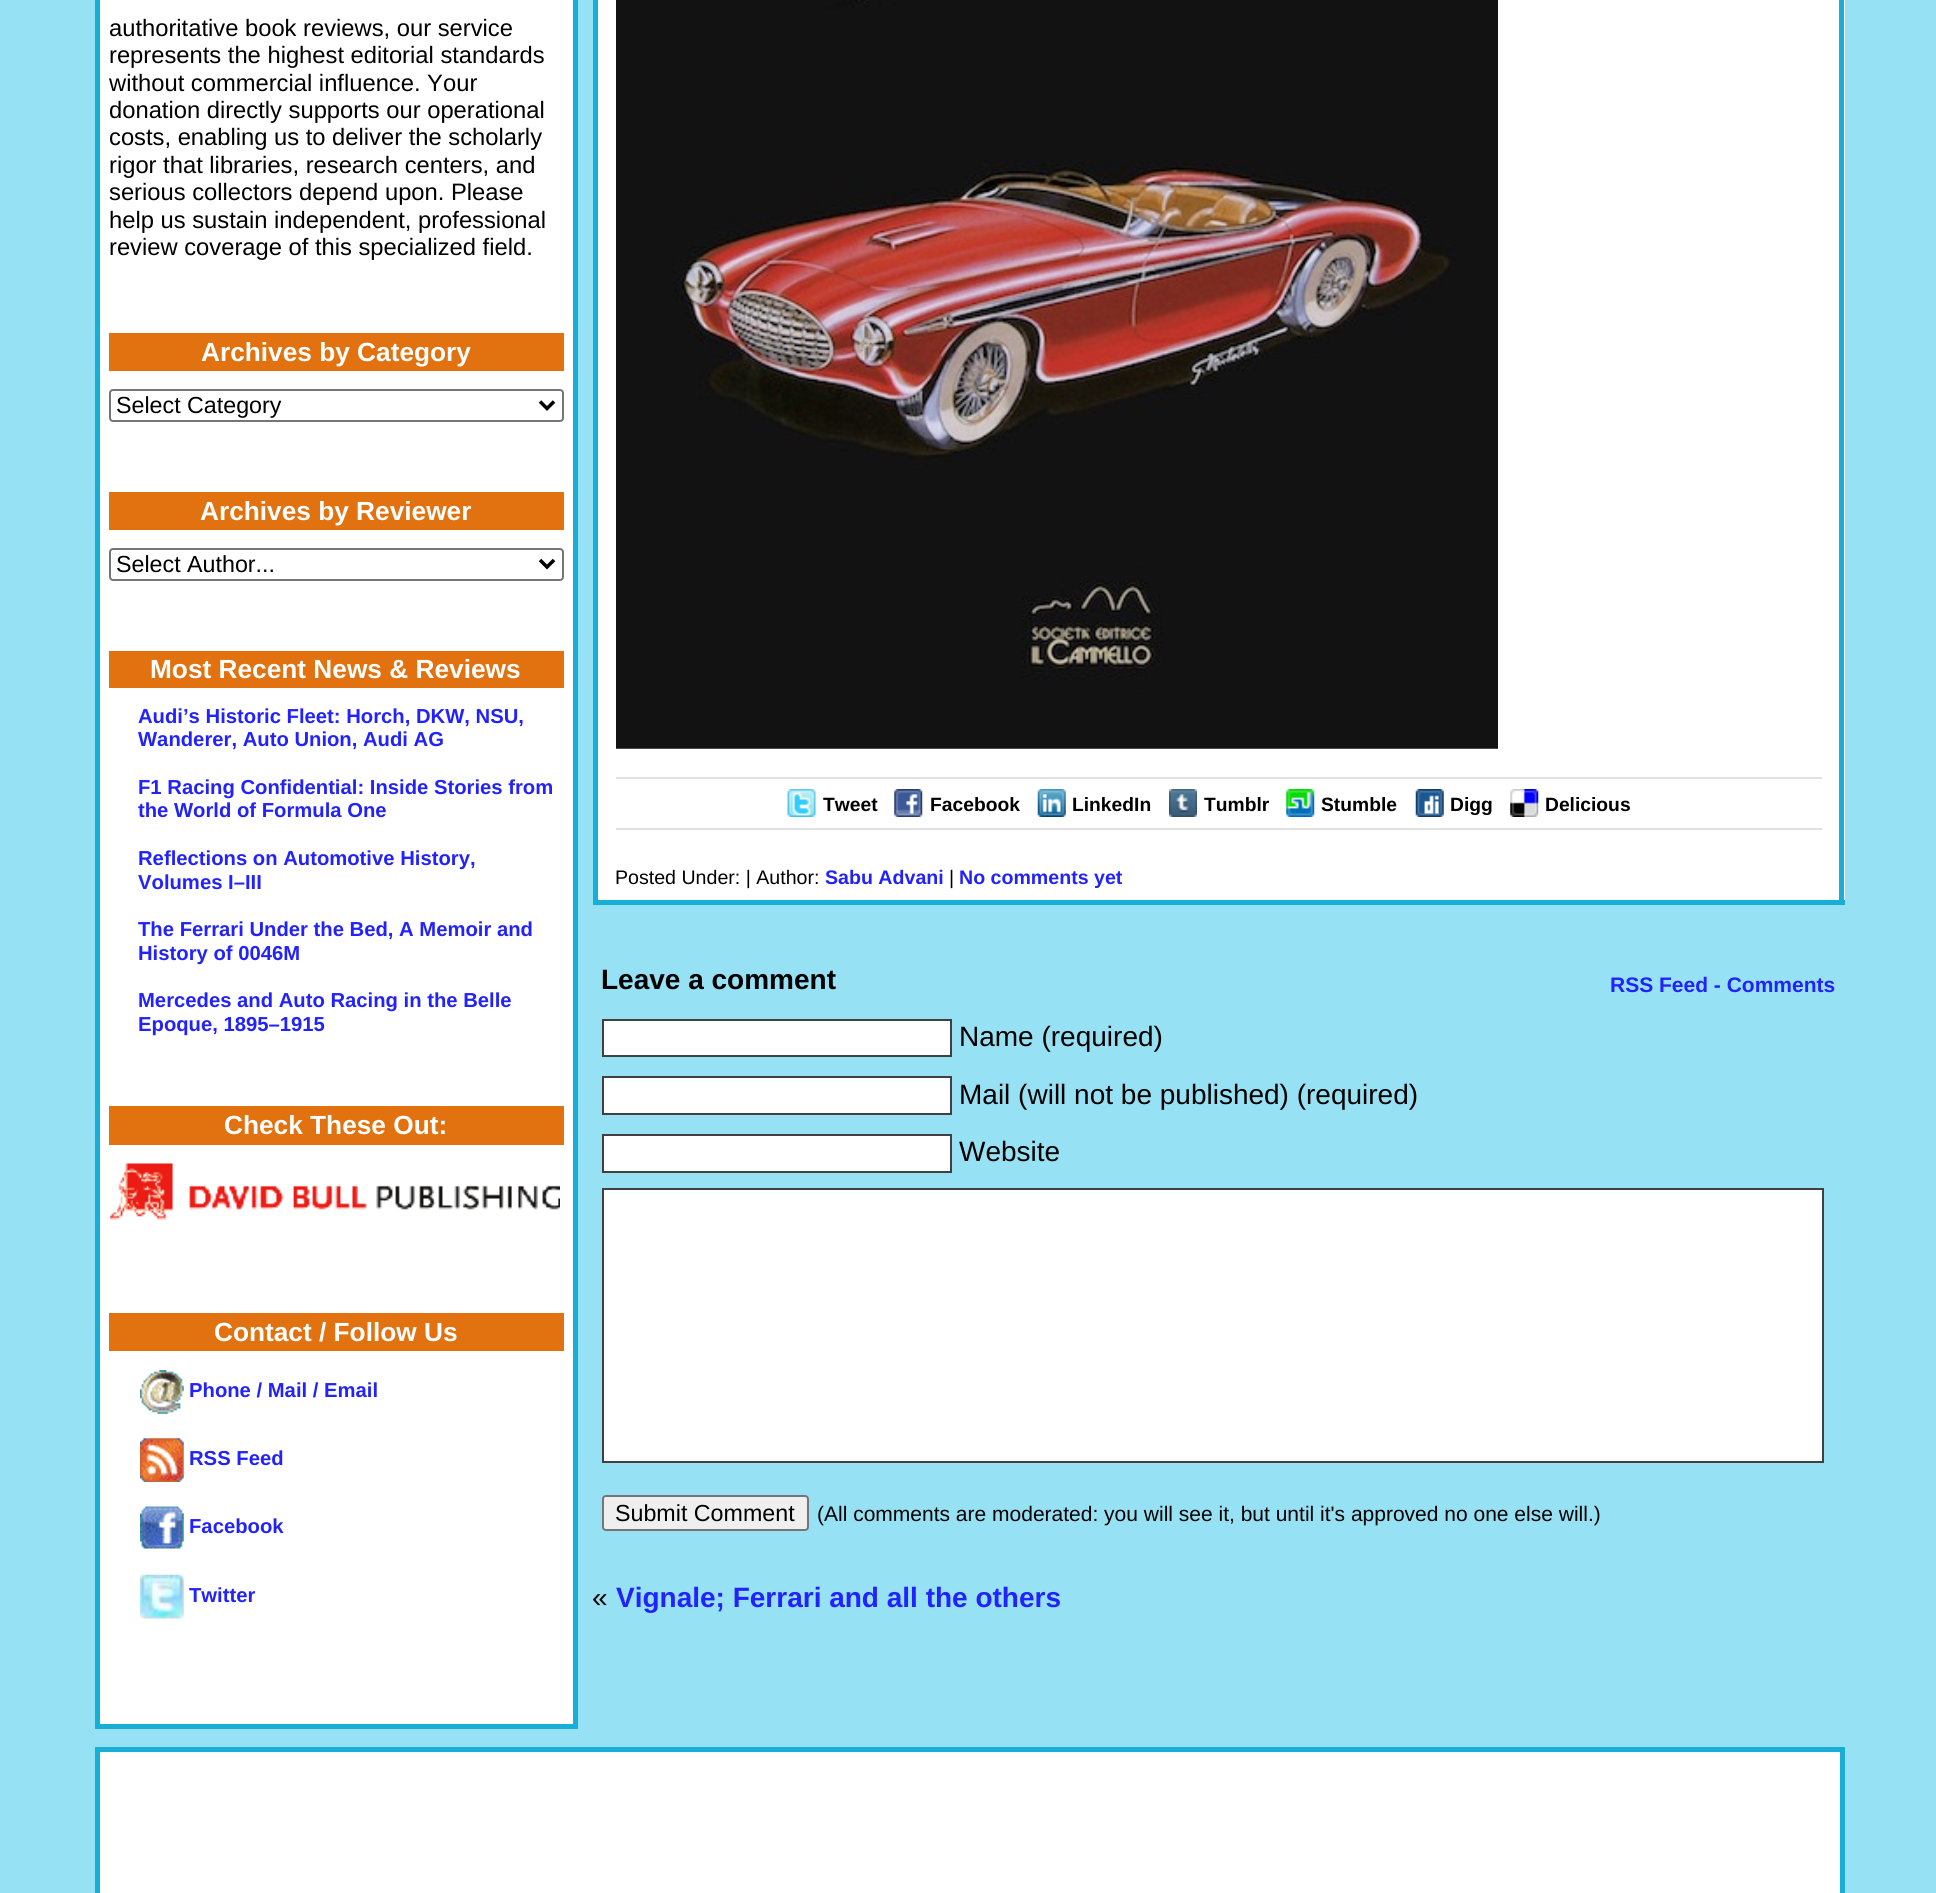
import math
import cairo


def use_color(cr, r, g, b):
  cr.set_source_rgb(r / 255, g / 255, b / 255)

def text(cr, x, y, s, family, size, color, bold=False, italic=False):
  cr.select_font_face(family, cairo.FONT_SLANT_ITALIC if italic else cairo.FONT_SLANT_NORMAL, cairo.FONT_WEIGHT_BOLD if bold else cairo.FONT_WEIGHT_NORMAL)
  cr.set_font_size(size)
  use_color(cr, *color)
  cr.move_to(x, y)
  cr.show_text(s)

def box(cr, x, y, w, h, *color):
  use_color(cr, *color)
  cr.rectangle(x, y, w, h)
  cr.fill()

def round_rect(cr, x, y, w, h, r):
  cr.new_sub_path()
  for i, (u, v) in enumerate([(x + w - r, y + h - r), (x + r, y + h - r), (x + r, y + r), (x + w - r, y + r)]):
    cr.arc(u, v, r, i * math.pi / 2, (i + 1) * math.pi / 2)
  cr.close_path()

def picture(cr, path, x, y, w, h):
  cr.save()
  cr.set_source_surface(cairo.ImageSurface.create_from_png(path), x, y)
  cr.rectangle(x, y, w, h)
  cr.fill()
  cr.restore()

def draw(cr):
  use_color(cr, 150, 225, 244)
  cr.paint()
  use_color(cr, 255, 255, 255)
  cr.rectangle(97.5, -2.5, 478, 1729)
  cr.fill_preserve()
  use_color(cr, 23, 175, 213)
  cr.set_line_width(5)
  cr.stroke()
  box(cr, 109, 333, 455, 38, 225, 114, 15)
  round_rect(cr, 110, 390, 453, 31, 3)
  use_color(cr, 118, 118, 118)
  cr.set_line_width(2)
  cr.stroke()
  cr.new_path()
  cr.move_to(540, 401.5)
  cr.line_to(547, 408.5)
  cr.line_to(554, 401.5)
  use_color(cr, 0, 0, 0)
  cr.set_line_width(3.5)
  cr.stroke()
  box(cr, 109, 492, 455, 38, 225, 114, 15)
  round_rect(cr, 110, 549, 453, 31, 3)
  use_color(cr, 118, 118, 118)
  cr.set_line_width(2)
  cr.stroke()
  cr.new_path()
  cr.move_to(540, 560)
  cr.line_to(547, 567)
  cr.line_to(554, 560)
  use_color(cr, 0, 0, 0)
  cr.set_line_width(3.5)
  cr.stroke()
  box(cr, 109, 651, 455, 37, 225, 114, 15)
  box(cr, 109, 1106, 455, 39, 225, 114, 15)
  picture(cr, "img_01.png", 110, 1163, 450, 57)
  box(cr, 109, 1313, 455, 38, 225, 114, 15)
  picture(cr, "img_02.png", 140, 1370, 44, 44)
  picture(cr, "img_03.png", 140, 1438, 44, 44)
  picture(cr, "img_04.png", 140, 1506, 44, 43)
  picture(cr, "img_05.png", 140, 1574, 44, 45)
  box(cr, 598, 0, 1247, 900, 255, 255, 255)
  box(cr, 1839, 0, 5, 905, 23, 175, 213)
  box(cr, 593, 0, 5, 838, 23, 175, 213)
  picture(cr, "img_06.png", 616, 0, 882, 749)
  box(cr, 616, 777, 1206, 2, 225, 225, 224)
  box(cr, 616, 828, 1206, 2, 225, 225, 224)
  picture(cr, "img_07.png", 787, 789, 29, 28)
  picture(cr, "img_08.png", 894, 789, 29, 28)
  picture(cr, "img_09.png", 1037, 789, 29, 28)
  picture(cr, "img_10.png", 1169, 789, 28, 28)
  picture(cr, "img_11.png", 1286, 789, 29, 28)
  picture(cr, "img_12.png", 1415, 789, 29, 28)
  picture(cr, "img_13.png", 1510, 789, 29, 28)
  box(cr, 593, 900, 1252, 5, 23, 175, 213)
  box(cr, 593, 838, 5, 67, 23, 175, 213)
  use_color(cr, 255, 255, 255)
  cr.rectangle(603, 1020, 348, 36)
  cr.fill_preserve()
  use_color(cr, 64, 64, 64)
  cr.set_line_width(2)
  cr.stroke()
  use_color(cr, 255, 255, 255)
  cr.rectangle(603, 1077, 348, 37)
  cr.fill_preserve()
  use_color(cr, 64, 64, 64)
  cr.stroke()
  use_color(cr, 255, 255, 255)
  cr.rectangle(603, 1135, 348, 37)
  cr.fill_preserve()
  use_color(cr, 64, 64, 64)
  cr.stroke()
  use_color(cr, 255, 255, 255)
  cr.rectangle(603, 1189, 1220, 273)
  cr.fill_preserve()
  use_color(cr, 64, 64, 64)
  cr.stroke()
  use_color(cr, 239, 239, 239)
  round_rect(cr, 603, 1496, 205, 34, 3)
  cr.fill_preserve()
  use_color(cr, 118, 118, 118)
  cr.stroke()
  use_color(cr, 255, 255, 255)
  cr.rectangle(97.5, 1749.5, 1745, 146)
  cr.fill_preserve()
  use_color(cr, 23, 175, 213)
  cr.set_line_width(5)
  cr.stroke()
  text(cr, 109, 36, "authoritative book reviews, our service", "Liberation Sans", 23.75, (0, 0, 0))
  text(cr, 109, 63, "represents the highest editorial standards", "Liberation Sans", 23.75, (0, 0, 0))
  text(cr, 109, 91, "without commercial influence. Your", "Liberation Sans", 23.75, (0, 0, 0))
  text(cr, 109, 118, "donation directly supports our operational", "Liberation Sans", 23.75, (0, 0, 0))
  text(cr, 109, 145, "costs, enabling us to deliver the scholarly", "Liberation Sans", 23.75, (0, 0, 0))
  text(cr, 109, 173, "rigor that libraries, research centers, and", "Liberation Sans", 23.75, (0, 0, 0))
  text(cr, 109, 200, "serious collectors depend upon. Please", "Liberation Sans", 23.75, (0, 0, 0))
  text(cr, 109, 228, "help us sustain independent, professional", "Liberation Sans", 23.75, (0, 0, 0))
  text(cr, 109, 255, "review coverage of this specialized field.", "Liberation Sans", 23.75, (0, 0, 0))
  text(cr, 201, 361, "Archives by Category", "Liberation Sans", 26.25, (255, 255, 255), bold=True)
  text(cr, 116, 413, "Select Category", "Liberation Sans", 23.25, (0, 0, 0))
  text(cr, 200, 520, "Archives by Reviewer", "Liberation Sans", 26.25, (255, 255, 255), bold=True)
  text(cr, 116, 572, "Select Author...", "Liberation Sans", 23.25, (0, 0, 0))
  text(cr, 150, 678, "Most Recent News & Reviews", "Liberation Sans", 26.25, (255, 255, 255), bold=True)
  text(cr, 138, 723, "Audi’s Historic Fleet: Horch, DKW, NSU,", "Liberation Sans", 20.25, (34, 34, 255), bold=True)
  text(cr, 138, 746, "Wanderer, Auto Union, Audi AG", "Liberation Sans", 20.25, (34, 34, 255), bold=True)
  text(cr, 138, 794, "F1 Racing Confidential: Inside Stories from", "Liberation Sans", 20.25, (34, 34, 255), bold=True)
  text(cr, 138, 817, "the World of Formula One", "Liberation Sans", 20.25, (34, 34, 255), bold=True)
  text(cr, 138, 865, "Reflections on Automotive History,", "Liberation Sans", 20.25, (34, 34, 255), bold=True)
  text(cr, 138, 889, "Volumes I–III", "Liberation Sans", 20.25, (34, 34, 255), bold=True)
  text(cr, 138, 936, "The Ferrari Under the Bed, A Memoir and", "Liberation Sans", 20.25, (34, 34, 255), bold=True)
  text(cr, 138, 960, "History of 0046M", "Liberation Sans", 20.25, (34, 34, 255), bold=True)
  text(cr, 138, 1007, "Mercedes and Auto Racing in the Belle", "Liberation Sans", 20.25, (34, 34, 255), bold=True)
  text(cr, 138, 1031, "Epoque, 1895–1915", "Liberation Sans", 20.25, (34, 34, 255), bold=True)
  text(cr, 224, 1134, "Check These Out:", "Liberation Sans", 26.25, (255, 255, 255), bold=True)
  text(cr, 214, 1341, "Contact / Follow Us", "Liberation Sans", 26.25, (255, 255, 255), bold=True)
  text(cr, 189, 1397, "Phone / Mail / Email", "Liberation Sans", 20.25, (34, 34, 255), bold=True)
  text(cr, 189, 1465, "RSS Feed", "Liberation Sans", 20.25, (34, 34, 255), bold=True)
  text(cr, 189, 1533, "Facebook", "Liberation Sans", 20.25, (34, 34, 255), bold=True)
  text(cr, 189, 1602, "Twitter", "Liberation Sans", 20.25, (34, 34, 255), bold=True)
  text(cr, 823, 811, "Tweet", "Liberation Sans", 19.25, (0, 0, 0), bold=True)
  text(cr, 930, 811, "Facebook", "Liberation Sans", 19.25, (0, 0, 0), bold=True)
  text(cr, 1072, 811, "LinkedIn", "Liberation Sans", 19.25, (0, 0, 0), bold=True)
  text(cr, 1204, 811, "Tumblr", "Liberation Sans", 19.25, (0, 0, 0), bold=True)
  text(cr, 1321, 811, "Stumble", "Liberation Sans", 19.25, (0, 0, 0), bold=True)
  text(cr, 1450, 811, "Digg", "Liberation Sans", 19.25, (0, 0, 0), bold=True)
  text(cr, 1545, 811, "Delicious", "Liberation Sans", 19.25, (0, 0, 0), bold=True)
  text(cr, 615, 884, "Posted Under: | Author:", "Liberation Sans", 19.6, (0, 0, 0))
  text(cr, 825, 884, "Sabu Advani", "Liberation Sans", 19.6, (34, 34, 255), bold=True)
  text(cr, 949, 884, "|", "Liberation Sans", 19.6, (0, 0, 0))
  text(cr, 959, 884, "No comments yet", "Liberation Sans", 19.6, (34, 34, 255), bold=True)
  text(cr, 601, 989, "Leave a comment", "Liberation Sans", 28, (0, 0, 0), bold=True)
  text(cr, 1610, 992, "RSS Feed - Comments", "Liberation Sans", 21, (34, 34, 255), bold=True)
  text(cr, 959, 1046, "Name (required)", "Liberation Sans", 28, (0, 0, 0))
  text(cr, 959, 1104, "Mail (will not be published) (required)", "Liberation Sans", 28, (0, 0, 0))
  text(cr, 959, 1161, "Website", "Liberation Sans", 28, (0, 0, 0))
  text(cr, 615, 1521, "Submit Comment", "Liberation Sans", 23.25, (0, 0, 0))
  text(cr, 817, 1521, "(All comments are moderated: you will see it, but until it's approved no one else will.)", "Liberation Sans", 21, (0, 0, 0))
  text(cr, 592, 1607, "«", "Liberation Sans", 28, (0, 0, 0))
  text(cr, 616, 1607, "Vignale; Ferrari and all the others", "Liberation Sans", 28, (34, 34, 255), bold=True)


surface = cairo.ImageSurface(cairo.FORMAT_RGB24, 1936, 1893)
cr = cairo.Context(surface)
options = cairo.FontOptions()
options.set_hint_metrics(cairo.HINT_METRICS_OFF)
options.set_hint_style(cairo.HINT_STYLE_NONE)
cr.set_font_options(options)
cr.set_miter_limit(4)
draw(cr)
surface.write_to_png("out.png")
